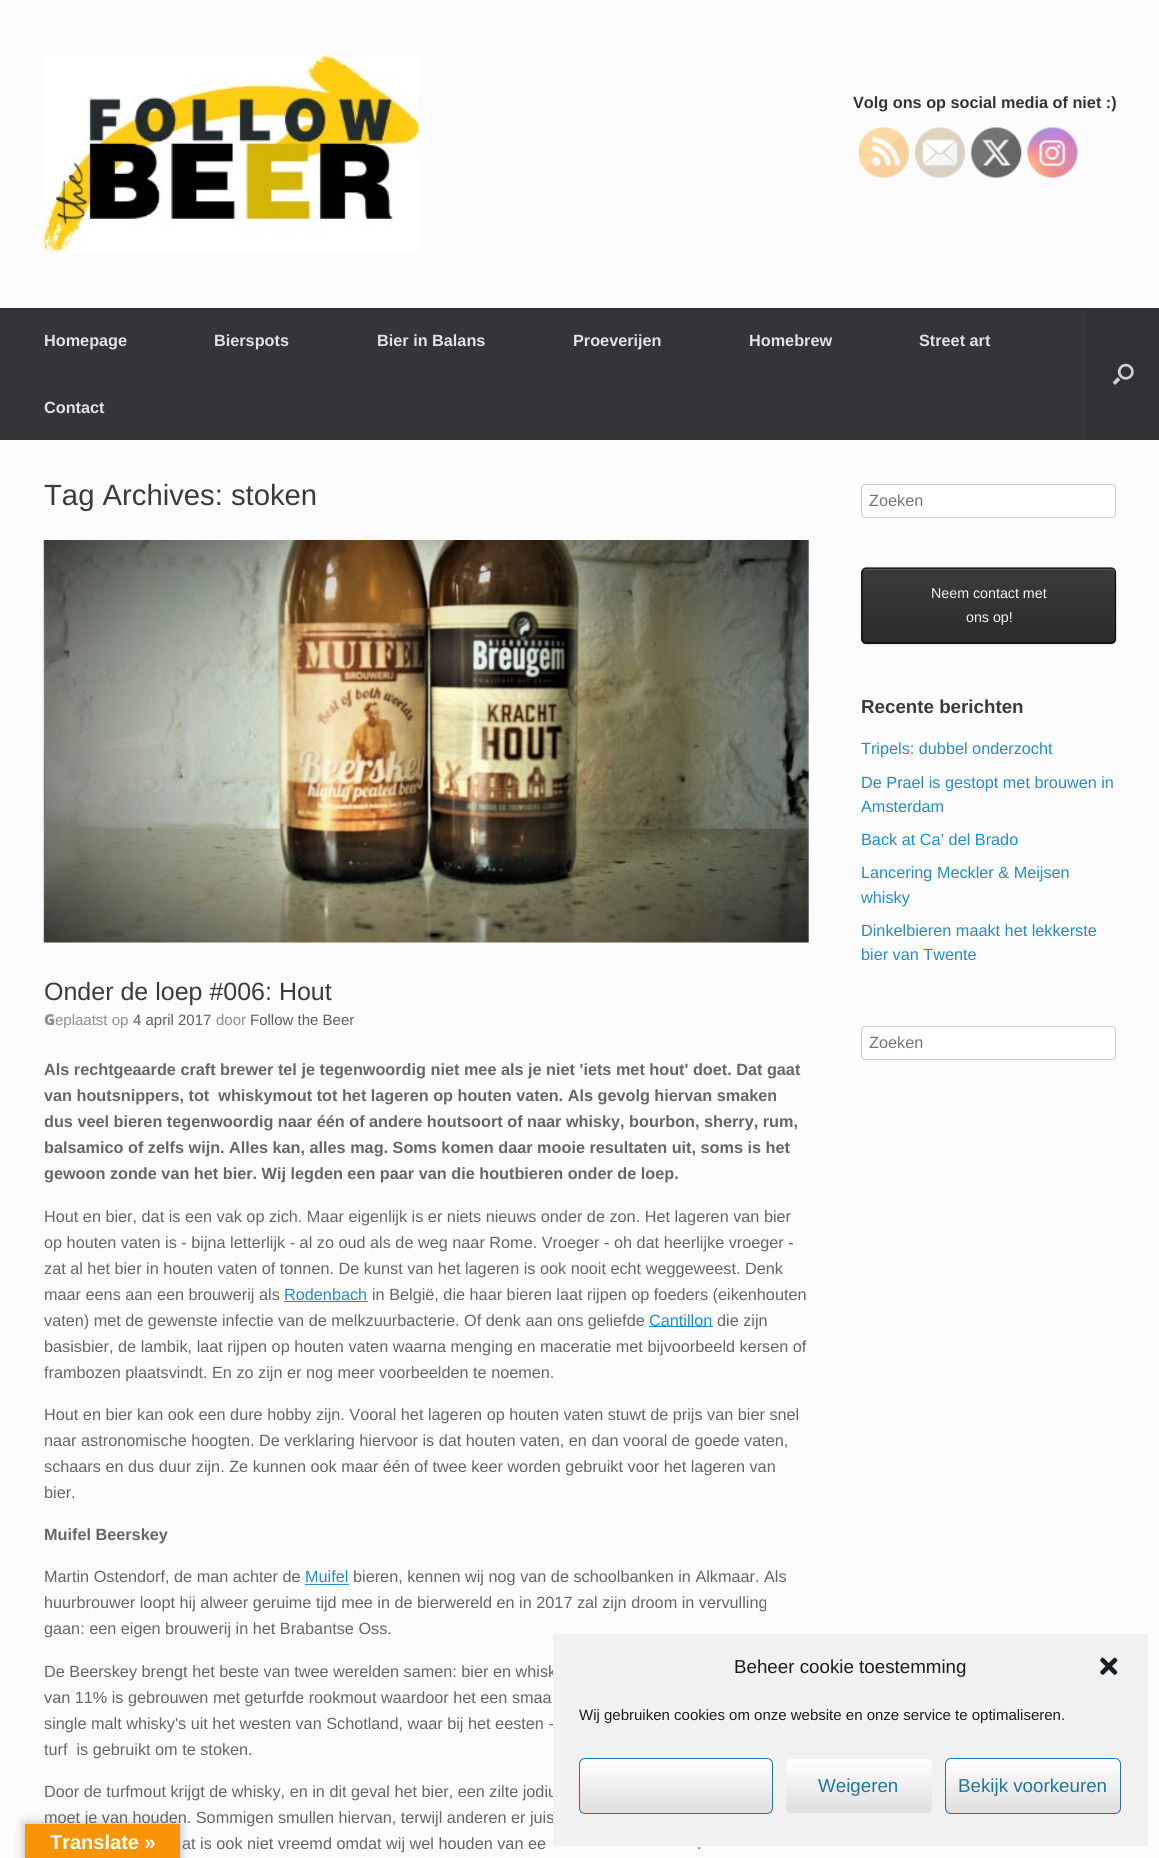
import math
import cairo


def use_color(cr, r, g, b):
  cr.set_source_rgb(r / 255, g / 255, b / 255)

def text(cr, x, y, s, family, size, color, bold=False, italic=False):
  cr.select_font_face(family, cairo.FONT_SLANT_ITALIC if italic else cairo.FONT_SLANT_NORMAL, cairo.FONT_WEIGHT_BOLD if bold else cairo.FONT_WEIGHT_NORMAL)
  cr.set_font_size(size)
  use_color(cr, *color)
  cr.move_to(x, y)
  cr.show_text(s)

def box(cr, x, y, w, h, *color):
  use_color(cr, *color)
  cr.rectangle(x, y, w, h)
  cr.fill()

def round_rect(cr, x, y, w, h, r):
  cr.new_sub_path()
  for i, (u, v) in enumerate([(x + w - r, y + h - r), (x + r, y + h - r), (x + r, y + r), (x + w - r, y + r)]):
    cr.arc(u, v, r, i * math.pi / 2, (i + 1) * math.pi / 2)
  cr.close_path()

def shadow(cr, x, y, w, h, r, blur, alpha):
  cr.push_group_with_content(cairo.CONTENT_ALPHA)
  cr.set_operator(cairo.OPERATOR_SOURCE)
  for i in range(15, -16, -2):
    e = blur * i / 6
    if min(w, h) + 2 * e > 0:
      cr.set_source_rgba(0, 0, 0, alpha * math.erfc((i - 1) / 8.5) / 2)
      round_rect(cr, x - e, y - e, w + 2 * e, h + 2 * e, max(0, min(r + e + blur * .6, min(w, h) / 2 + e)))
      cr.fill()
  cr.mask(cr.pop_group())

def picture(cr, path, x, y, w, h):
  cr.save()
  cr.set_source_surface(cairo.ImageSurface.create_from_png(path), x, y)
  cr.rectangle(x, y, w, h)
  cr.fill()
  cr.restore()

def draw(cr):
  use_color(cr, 252, 252, 252)
  cr.paint()
  picture(cr, "img_01.png", 43, 56, 376, 196)
  picture(cr, "img_02.png", 858, 127, 51, 51)
  picture(cr, "img_03.png", 915, 127, 50, 51)
  picture(cr, "img_04.png", 971, 127, 51, 51)
  picture(cr, "img_05.png", 1027, 127, 51, 51)
  box(cr, 0, 308, 1086, 132, 52, 53, 56)
  box(cr, 1086, 308, 73, 132, 48, 49, 52)
  picture(cr, "img_06.png", 1112, 363, 22, 22)
  picture(cr, "img_07.png", 43, 540, 766, 403)
  box(cr, 284, 1301, 84, 1, 36, 140, 200)
  box(cr, 649, 1326, 64, 1, 36, 140, 200)
  box(cr, 305, 1584, 44, 1, 36, 140, 200)
  use_color(cr, 255, 255, 255)
  round_rect(cr, 861.5, 484.5, 254, 33, 3.5)
  cr.fill_preserve()
  use_color(cr, 204, 204, 204)
  cr.set_line_width(1)
  cr.stroke()
  use_color(cr, 0, 0, 0)
  shadow(cr, 861, 569, 255, 76, 5, 1, 0.1)
  cr.save()
  round_rect(cr, 861, 568, 255, 76, 5)
  cr.clip()
  gradient = cairo.LinearGradient(863, 569, 863, 495)
  gradient.add_color_stop_rgba(0, 0.169, 0.169, 0.169, 1)
  gradient.add_color_stop_rgba(1, 0.231, 0.231, 0.231, 1)
  cr.set_source(gradient)
  cr.rectangle(861, 568, 255, 1)
  cr.fill()
  gradient = cairo.LinearGradient(863, 643, 863, 569)
  gradient.add_color_stop_rgba(0, 0.169, 0.169, 0.169, 1)
  gradient.add_color_stop_rgba(1, 0.231, 0.231, 0.231, 1)
  cr.set_source(gradient)
  cr.rectangle(861, 569, 255, 74)
  cr.fill()
  gradient = cairo.LinearGradient(863, 716, 863, 643)
  gradient.add_color_stop_rgba(0, 0.169, 0.169, 0.169, 1)
  gradient.add_color_stop_rgba(1, 0.231, 0.231, 0.231, 1)
  cr.set_source(gradient)
  cr.rectangle(861, 643, 255, 1)
  cr.fill()
  cr.restore()
  use_color(cr, 90, 90, 90)
  cr.new_path()
  cr.move_to(866, 570)
  cr.line_to(1111, 570)
  cr.curve_to(1113, 570, 1115, 572, 1115, 574)
  cr.line_to(1115, 573)
  cr.curve_to(1115, 571, 1113, 569, 1111, 569)
  cr.line_to(867, 569)
  cr.curve_to(866, 569, 864, 570, 864, 571)
  cr.close_path()
  cr.fill()
  cr.new_path()
  cr.move_to(863, 569.5)
  cr.curve_to(864, 568.5, 865, 568, 866, 568)
  cr.line_to(1111, 568)
  cr.curve_to(1112.5, 568, 1113.5, 568.5, 1114.5, 569.5)
  use_color(cr, 22, 22, 22)
  cr.set_line_width(1.2)
  cr.stroke()
  cr.new_path()
  cr.move_to(1114.5, 569.5)
  cr.line_to(1115.5, 572)
  cr.line_to(1115.5, 639)
  cr.line_to(1114.5, 642)
  use_color(cr, 12, 12, 12)
  cr.stroke()
  cr.new_path()
  cr.move_to(1114.5, 642)
  cr.curve_to(1113.5, 642.5, 1112.5, 643, 1111, 643)
  cr.line_to(866, 643)
  cr.curve_to(865, 643, 864, 642.5, 863, 642)
  use_color(cr, 0, 0, 0)
  cr.stroke()
  cr.new_path()
  cr.move_to(863, 642)
  cr.line_to(862, 639)
  cr.line_to(862, 572)
  cr.line_to(863, 569.5)
  use_color(cr, 12, 12, 12)
  cr.stroke()
  use_color(cr, 255, 255, 255)
  round_rect(cr, 861.5, 1026.5, 254, 33, 3.5)
  cr.fill_preserve()
  use_color(cr, 204, 204, 204)
  cr.set_line_width(1)
  cr.stroke()
  use_color(cr, 0, 0, 0)
  shadow(cr, 25, 1824, 155, 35, 0, 5.5, 0.3)
  text(cr, 853, 108, "Volg ons op social media of niet :)", "Liberation Sans", 16.25, (51, 51, 51), bold=True)
  text(cr, 44, 346, "Homepage", "Liberation Sans", 16.25, (226, 226, 226), bold=True)
  text(cr, 214, 346, "Bierspots", "Liberation Sans", 16.25, (226, 226, 226), bold=True)
  text(cr, 377, 346, "Bier in Balans", "Liberation Sans", 16.25, (226, 226, 226), bold=True)
  text(cr, 573, 346, "Proeverijen", "Liberation Sans", 16.25, (226, 226, 226), bold=True)
  text(cr, 749, 346, "Homebrew", "Liberation Sans", 16.25, (226, 226, 226), bold=True)
  text(cr, 919, 346, "Street art", "Liberation Sans", 16.25, (226, 226, 226), bold=True)
  text(cr, 44, 413, "Contact", "Liberation Sans", 16.25, (226, 226, 226), bold=True)
  text(cr, 44, 505, "Tag Archives: stoken", "Liberation Sans", 29.25, (59, 59, 59))
  text(cr, 44, 1000, "Onder de loep #006: Hout", "Liberation Sans", 25, (59, 59, 59))
  text(cr, 44, 1025, "G", "Noto Sans Black", 15, (143, 143, 143))
  text(cr, 55, 1025, "eplaatst op", "Liberation Sans", 15, (143, 143, 143))
  text(cr, 133, 1025, "4 april 2017", "Liberation Sans", 15, (94, 94, 94))
  text(cr, 216, 1025, "door", "Liberation Sans", 15, (143, 143, 143))
  text(cr, 250, 1025, "Follow the Beer", "Liberation Sans", 15, (94, 94, 94))
  text(cr, 44, 1075, "Als rechtgeaarde craft brewer tel je tegenwoordig niet mee als je niet 'iets met hout' doet. Dat gaat", "Liberation Sans", 16.25, (102, 102, 102), bold=True)
  text(cr, 44, 1101, "van houtsnippers, tot  whiskymout tot het lageren op houten vaten. Als gevolg hiervan smaken", "Liberation Sans", 16.25, (102, 102, 102), bold=True)
  text(cr, 44, 1127, "dus veel bieren tegenwoordig naar één of andere houtsoort of naar whisky, bourbon, sherry, rum,", "Liberation Sans", 16.25, (102, 102, 102), bold=True)
  text(cr, 44, 1153, "balsamico of zelfs wijn. Alles kan, alles mag. Soms komen daar mooie resultaten uit, soms is het", "Liberation Sans", 16.25, (102, 102, 102), bold=True)
  text(cr, 44, 1179, "gewoon zonde van het bier. Wij legden een paar van die houtbieren onder de loep.", "Liberation Sans", 16.25, (102, 102, 102), bold=True)
  text(cr, 44, 1222, "Hout en bier, dat is een vak op zich. Maar eigenlijk is er niets nieuws onder de zon. Het lageren van bier", "Liberation Sans", 16.25, (102, 102, 102))
  text(cr, 44, 1248, "op houten vaten is - bijna letterlijk - al zo oud als de weg naar Rome. Vroeger - oh dat heerlijke vroeger -", "Liberation Sans", 16.25, (102, 102, 102))
  text(cr, 44, 1274, "zat al het bier in houten vaten of tonnen. De kunst van het lageren is ook nooit echt weggeweest. Denk", "Liberation Sans", 16.25, (102, 102, 102))
  text(cr, 44, 1300, "maar eens aan een brouwerij als", "Liberation Sans", 16.25, (102, 102, 102))
  text(cr, 284, 1300, "Rodenbach", "Liberation Sans", 16.25, (36, 140, 200))
  text(cr, 372, 1300, "in België, die haar bieren laat rijpen op foeders (eikenhouten", "Liberation Sans", 16.25, (102, 102, 102))
  text(cr, 44, 1326, "vaten) met de gewenste infectie van de melkzuurbacterie. Of denk aan ons geliefde", "Liberation Sans", 16.25, (102, 102, 102))
  text(cr, 649, 1326, "Cantillon", "Liberation Sans", 16.25, (36, 140, 200))
  text(cr, 717, 1326, "die zijn", "Liberation Sans", 16.25, (102, 102, 102))
  text(cr, 44, 1352, "basisbier, de lambik, laat rijpen op houten vaten waarna menging en maceratie met bijvoorbeeld kersen of", "Liberation Sans", 16.25, (102, 102, 102))
  text(cr, 44, 1378, "frambozen plaatsvindt. En zo zijn er nog meer voorbeelden te noemen.", "Liberation Sans", 16.25, (102, 102, 102))
  text(cr, 44, 1420, "Hout en bier kan ook een dure hobby zijn. Vooral het lageren op houten vaten stuwt de prijs van bier snel", "Liberation Sans", 16.25, (102, 102, 102))
  text(cr, 44, 1446, "naar astronomische hoogten. De verklaring hiervoor is dat houten vaten, en dan vooral de goede vaten,", "Liberation Sans", 16.25, (102, 102, 102))
  text(cr, 44, 1472, "schaars en dus duur zijn. Ze kunnen ook maar één of twee keer worden gebruikt voor het lageren van", "Liberation Sans", 16.25, (102, 102, 102))
  text(cr, 44, 1498, "bier.", "Liberation Sans", 16.25, (102, 102, 102))
  text(cr, 44, 1540, "Muifel Beerskey", "Liberation Sans", 16.25, (102, 102, 102), bold=True)
  text(cr, 44, 1582, "Martin Ostendorf, de man achter de", "Liberation Sans", 16.25, (102, 102, 102))
  text(cr, 305, 1582, "Muifel", "Liberation Sans", 16.25, (36, 140, 200))
  text(cr, 353, 1582, "bieren, kennen wij nog van de schoolbanken in Alkmaar. Als", "Liberation Sans", 16.25, (102, 102, 102))
  text(cr, 44, 1608, "huurbrouwer loopt hij alweer geruime tijd mee in de bierwereld en in 2017 zal zijn droom in vervulling", "Liberation Sans", 16.25, (102, 102, 102))
  text(cr, 44, 1634, "gaan: een eigen brouwerij in het Brabantse Oss.", "Liberation Sans", 16.25, (102, 102, 102))
  text(cr, 44, 1677, "De Beerskey brengt het beste van twee werelden samen: bier en whisk", "Liberation Sans", 16.25, (102, 102, 102))
  text(cr, 44, 1703, "van 11% is gebrouwen met geturfde rookmout waardoor het een smaa", "Liberation Sans", 16.25, (102, 102, 102))
  text(cr, 44, 1729, "single malt whisky's uit het westen van Schotland, waar bij het eesten -", "Liberation Sans", 16.25, (102, 102, 102))
  text(cr, 44, 1755, "turf  is gebruikt om te stoken.", "Liberation Sans", 16.25, (102, 102, 102))
  text(cr, 44, 1797, "Door de turfmout krijgt de whisky, en in dit geval het bier, een zilte jodiu", "Liberation Sans", 16.25, (102, 102, 102))
  text(cr, 44, 1823, "moet je van houden. Sommigen smullen hiervan, terwijl anderen er juis", "Liberation Sans", 16.25, (102, 102, 102))
  text(cr, 182, 1849, "at is ook niet vreemd omdat wij wel houden van ee", "Liberation Sans", 16.25, (102, 102, 102))
  text(cr, 697, 1849, ".", "Liberation Sans", 16.25, (102, 102, 102))
  text(cr, 869, 506, "Zoeken", "Liberation Sans", 16.25, (117, 117, 117))
  text(cr, 931, 598, "Neem contact met", "Liberation Sans", 14.25, (244, 244, 244))
  text(cr, 966, 622, "ons op!", "Liberation Sans", 14.25, (244, 244, 244))
  text(cr, 861, 713, "Recente berichten", "Liberation Sans", 18.75, (59, 59, 59), bold=True)
  text(cr, 861, 754, "Tripels: dubbel onderzocht", "Liberation Sans", 16.25, (36, 140, 200))
  text(cr, 861, 788, "De Prael is gestopt met brouwen in", "Liberation Sans", 16.25, (36, 140, 200))
  text(cr, 861, 812, "Amsterdam", "Liberation Sans", 16.25, (36, 140, 200))
  text(cr, 861, 845, "Back at Ca’ del Brado", "Liberation Sans", 16.25, (36, 140, 200))
  text(cr, 861, 878, "Lancering Meckler & Meijsen", "Liberation Sans", 16.25, (36, 140, 200))
  text(cr, 861, 903, "whisky", "Liberation Sans", 16.25, (36, 140, 200))
  text(cr, 861, 936, "Dinkelbieren maakt het lekkerste", "Liberation Sans", 16.25, (36, 140, 200))
  text(cr, 861, 960, "bier van Twente", "Liberation Sans", 16.25, (36, 140, 200))
  text(cr, 869, 1048, "Zoeken", "Liberation Sans", 16.25, (117, 117, 117))
  box(cr, 553, 1634, 595, 212, 241, 241, 241)
  text(cr, 734, 1673, "Beheer cookie toestemming", "Liberation Sans", 18.75, (25, 30, 35))
  picture(cr, "img_08.png", 1100, 1657, 18, 18)
  text(cr, 579, 1720, "Wij gebruiken cookies om onze website en onze service te optimaliseren.", "Liberation Sans", 15, (25, 30, 35))
  cr.save()
  round_rect(cr, 579, 1758, 194, 56, 6)
  cr.clip()
  gradient = cairo.LinearGradient(580, 1813, 580, 1759)
  gradient.add_color_stop_rgba(0, 0.875, 0.875, 0.875, 1)
  gradient.add_color_stop_rgba(1, 1, 1, 1, 1)
  cr.set_source(gradient)
  cr.rectangle(579, 1759, 194, 54)
  cr.fill()
  cr.restore()
  round_rect(cr, 579.5, 1758.5, 193, 55, 5.5)
  use_color(cr, 33, 117, 155)
  cr.stroke()
  cr.save()
  round_rect(cr, 785, 1758, 148, 56, 6)
  cr.clip()
  gradient = cairo.LinearGradient(786, 1813, 786, 1759)
  gradient.add_color_stop_rgba(0, 0.875, 0.875, 0.875, 1)
  gradient.add_color_stop_rgba(1, 1, 1, 1, 1)
  cr.set_source(gradient)
  cr.rectangle(785, 1759, 148, 54)
  cr.fill()
  cr.restore()
  round_rect(cr, 785.5, 1758.5, 147, 55, 5.5)
  use_color(cr, 241, 241, 241)
  cr.stroke()
  text(cr, 818, 1792, "Weigeren", "Liberation Sans", 18.75, (33, 117, 155))
  cr.save()
  round_rect(cr, 945, 1758, 176, 56, 6)
  cr.clip()
  gradient = cairo.LinearGradient(946, 1813, 946, 1759)
  gradient.add_color_stop_rgba(0, 0.875, 0.875, 0.875, 1)
  gradient.add_color_stop_rgba(1, 1, 1, 1, 1)
  cr.set_source(gradient)
  cr.rectangle(945, 1759, 176, 54)
  cr.fill()
  cr.restore()
  round_rect(cr, 945.5, 1758.5, 175, 55, 5.5)
  cr.stroke()
  text(cr, 958, 1792, "Bekijk voorkeuren", "Liberation Sans", 18.75, (33, 117, 155))
  box(cr, 25, 1824, 155, 34, 248, 148, 6)
  text(cr, 50, 1849, "Translate »", "Liberation Sans", 20, (255, 255, 255), bold=True)


surface = cairo.ImageSurface(cairo.FORMAT_RGB24, 1159, 1858)
cr = cairo.Context(surface)
options = cairo.FontOptions()
options.set_hint_metrics(cairo.HINT_METRICS_OFF)
options.set_hint_style(cairo.HINT_STYLE_NONE)
cr.set_font_options(options)
cr.set_miter_limit(4)
draw(cr)
surface.write_to_png("out.png")
